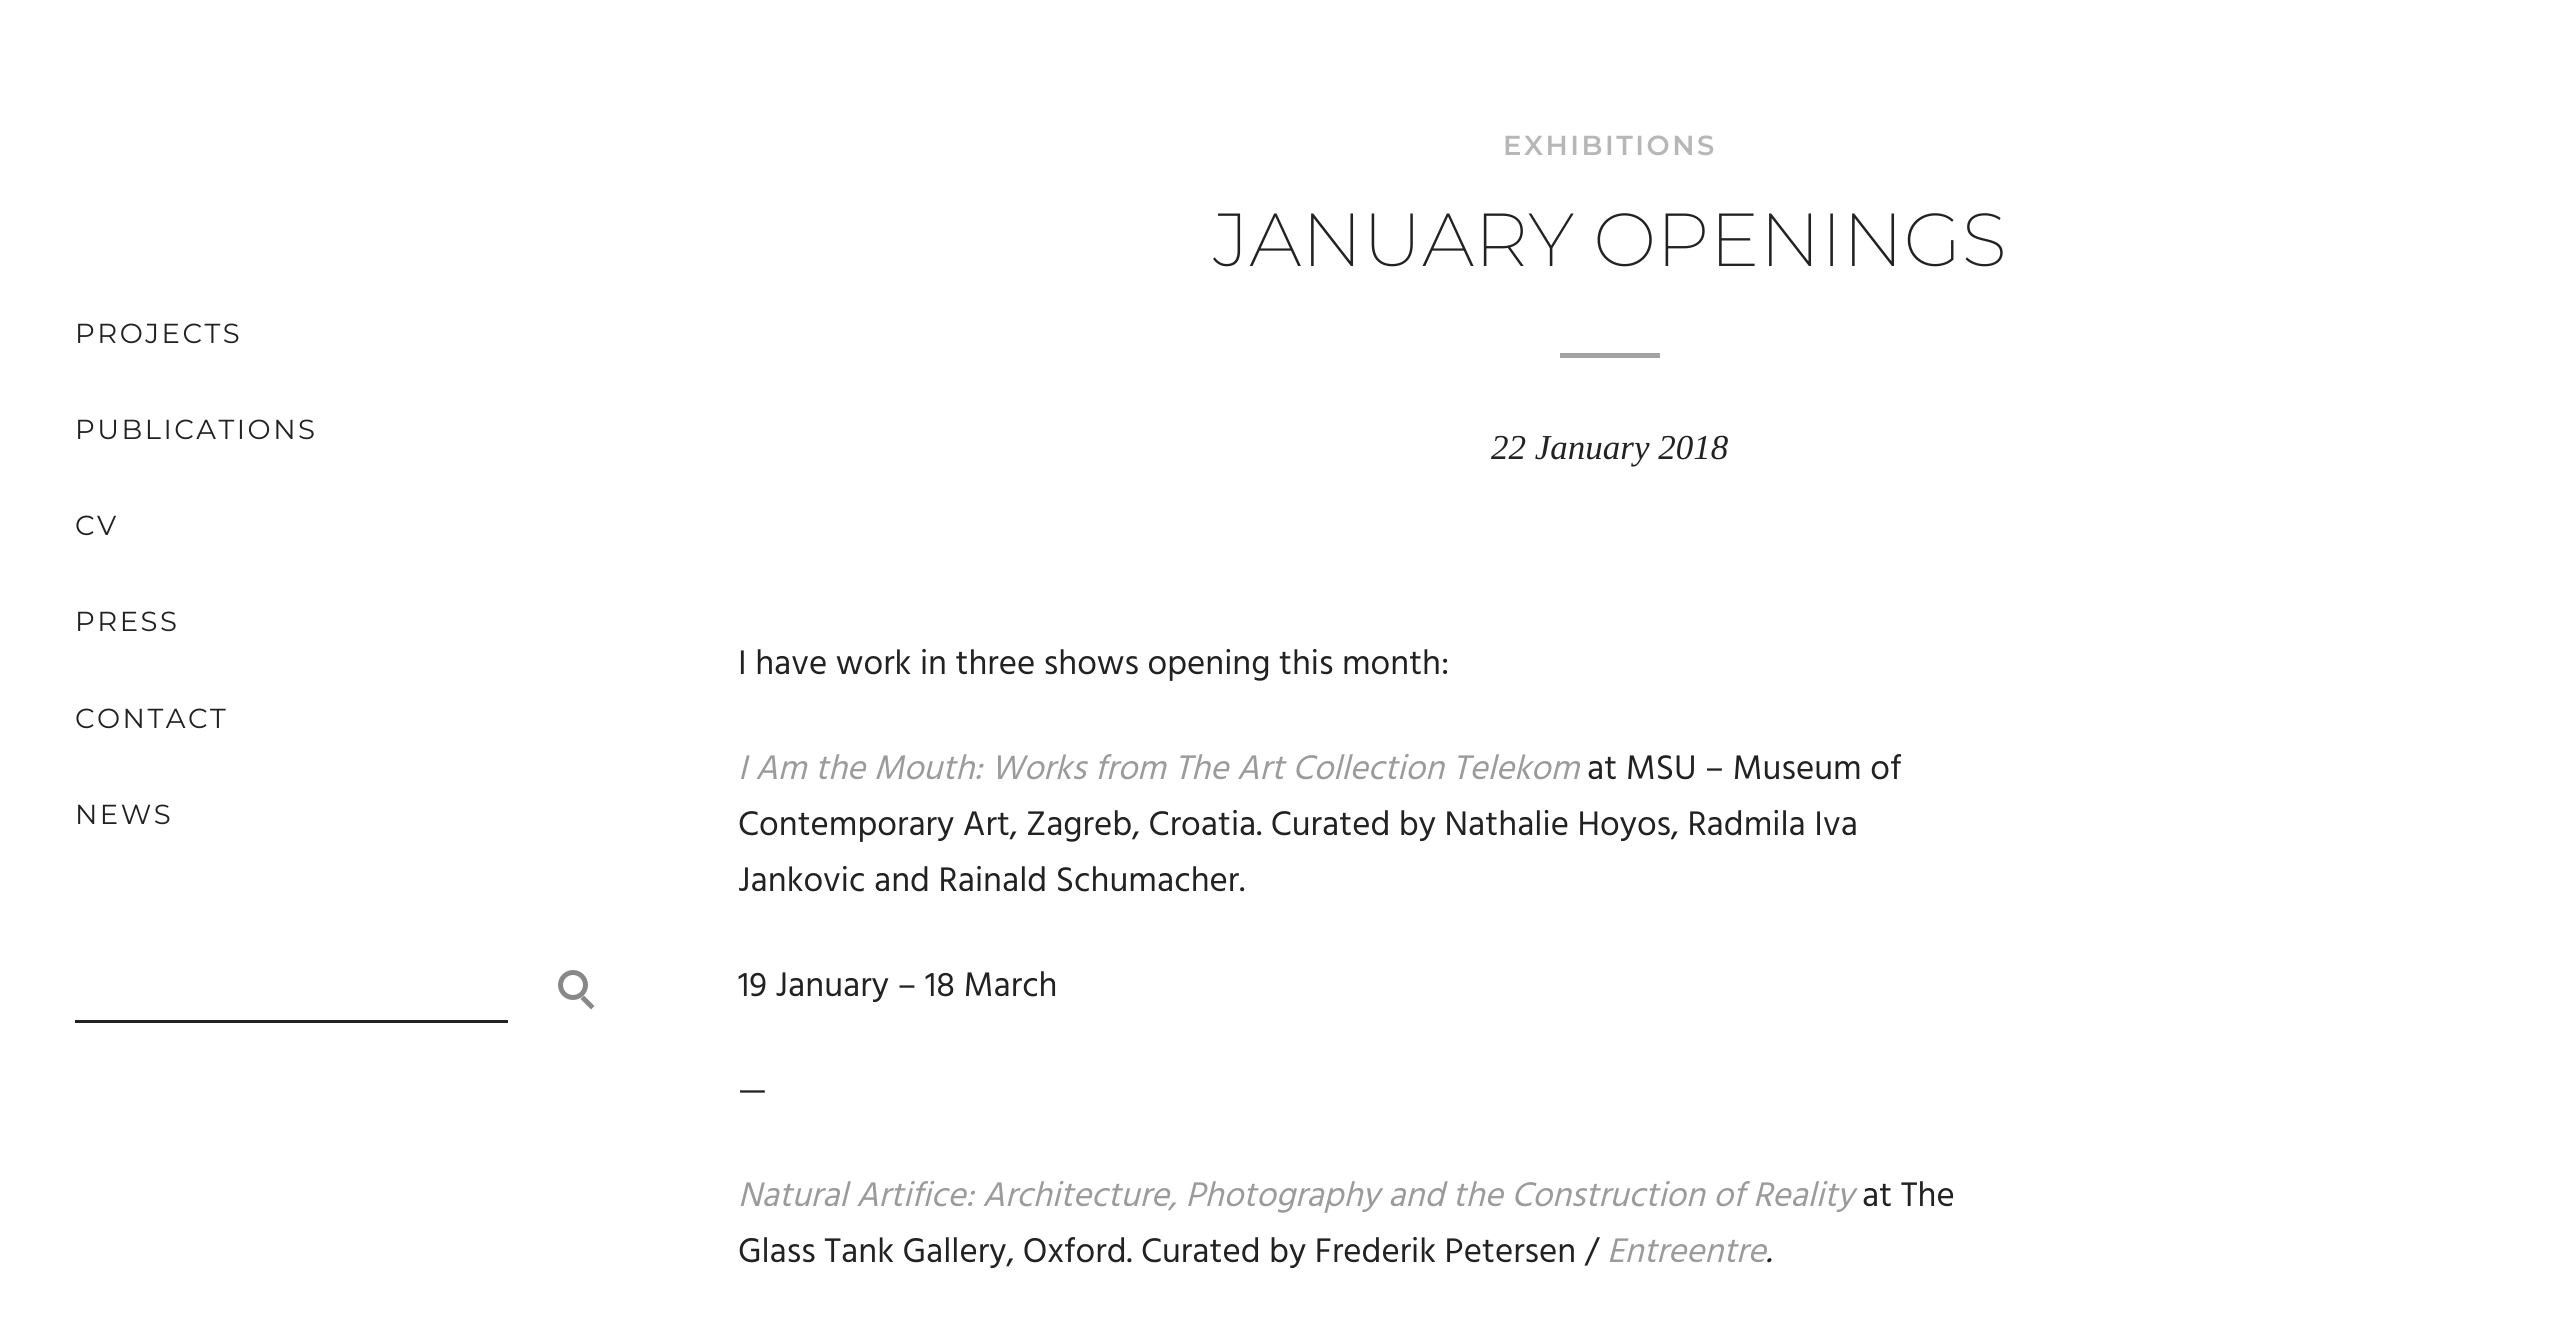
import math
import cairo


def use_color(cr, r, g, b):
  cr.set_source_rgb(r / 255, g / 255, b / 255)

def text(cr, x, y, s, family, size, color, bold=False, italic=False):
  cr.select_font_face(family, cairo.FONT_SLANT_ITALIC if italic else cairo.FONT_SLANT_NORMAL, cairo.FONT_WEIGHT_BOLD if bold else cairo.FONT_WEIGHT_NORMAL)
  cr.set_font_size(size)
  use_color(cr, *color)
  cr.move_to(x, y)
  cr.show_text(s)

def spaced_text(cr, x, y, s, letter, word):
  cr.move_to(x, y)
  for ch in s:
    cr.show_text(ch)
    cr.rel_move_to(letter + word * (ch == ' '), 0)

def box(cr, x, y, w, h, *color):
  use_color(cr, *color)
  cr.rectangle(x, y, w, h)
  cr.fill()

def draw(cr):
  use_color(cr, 255, 255, 255)
  cr.paint()
  cr.arc(573, 985, 12.5, 0, 2 * math.pi)
  use_color(cr, 136, 136, 136)
  cr.set_line_width(5)
  cr.stroke()
  cr.new_path()
  cr.move_to(584, 995.5)
  cr.line_to(594.5, 1006)
  cr.line_to(591, 1009.5)
  cr.line_to(580.5, 999)
  cr.close_path()
  cr.fill()
  box(cr, 75, 1020, 433, 3, 34, 34, 34)
  box(cr, 1560, 353, 100, 5, 163, 163, 163)
  cr.select_font_face("Montserrat")
  cr.set_font_size(27.5)
  use_color(cr, 34, 34, 34)
  spaced_text(cr, 75, 343, "PROJECTS", 2.5, 0)
  spaced_text(cr, 75, 439, "PUBLICATIONS", 2.5, 0)
  spaced_text(cr, 75, 535, "CV", 2.5, 0)
  spaced_text(cr, 75, 631, "PRESS", 2.5, 0)
  spaced_text(cr, 75, 728, "CONTACT", 2.5, 0)
  spaced_text(cr, 75, 824, "NEWS", 2.5, 0)
  cr.select_font_face("Montserrat SemiBold")
  use_color(cr, 183, 183, 183)
  spaced_text(cr, 1503, 155, "EXHIBITIONS", 2.5, 0)
  text(cr, 1213, 266, "JANUARY OPENINGS", "Montserrat ExtraLight", 75, (34, 34, 34))
  text(cr, 1491, 459, "22 January 2018", "Liberation Serif", 35, (34, 34, 34), italic=True)
  text(cr, 738, 674, "I have work in three shows opening this month:", "Hind", 35, (34, 34, 34))
  text(cr, 738, 779, "I Am the Mouth: Works from The Art Collection Telekom", "Hind", 35, (155, 155, 155), italic=True)
  text(cr, 1587, 779, "at MSU – Museum of", "Hind", 35, (34, 34, 34))
  text(cr, 738, 835, "Contemporary Art, Zagreb, Croatia. Curated by Nathalie Hoyos, Radmila Iva", "Hind", 35, (34, 34, 34))
  text(cr, 738, 891, "Jankovic and Rainald Schumacher.", "Hind", 35, (34, 34, 34))
  text(cr, 738, 996, "19 January – 18 March", "Hind", 35, (34, 34, 34))
  text(cr, 738, 1101, "—", "Hind", 35, (34, 34, 34))
  text(cr, 738, 1206, "Natural Artifice: Architecture, Photography and the Construction of Reality", "Hind", 35, (155, 155, 155), italic=True)
  text(cr, 1862, 1206, "at The", "Hind", 35, (34, 34, 34))
  text(cr, 738, 1262, "Glass Tank Gallery, Oxford. Curated by Frederik Petersen /", "Hind", 35, (34, 34, 34))
  text(cr, 1607, 1262, "Entreentre", "Hind", 35, (155, 155, 155), italic=True)
  text(cr, 1766, 1262, ".", "Hind", 35, (34, 34, 34), italic=True)


surface = cairo.ImageSurface(cairo.FORMAT_RGB24, 2557, 1319)
cr = cairo.Context(surface)
options = cairo.FontOptions()
options.set_hint_metrics(cairo.HINT_METRICS_OFF)
options.set_hint_style(cairo.HINT_STYLE_NONE)
cr.set_font_options(options)
cr.set_miter_limit(4)
draw(cr)
surface.write_to_png("out.png")
